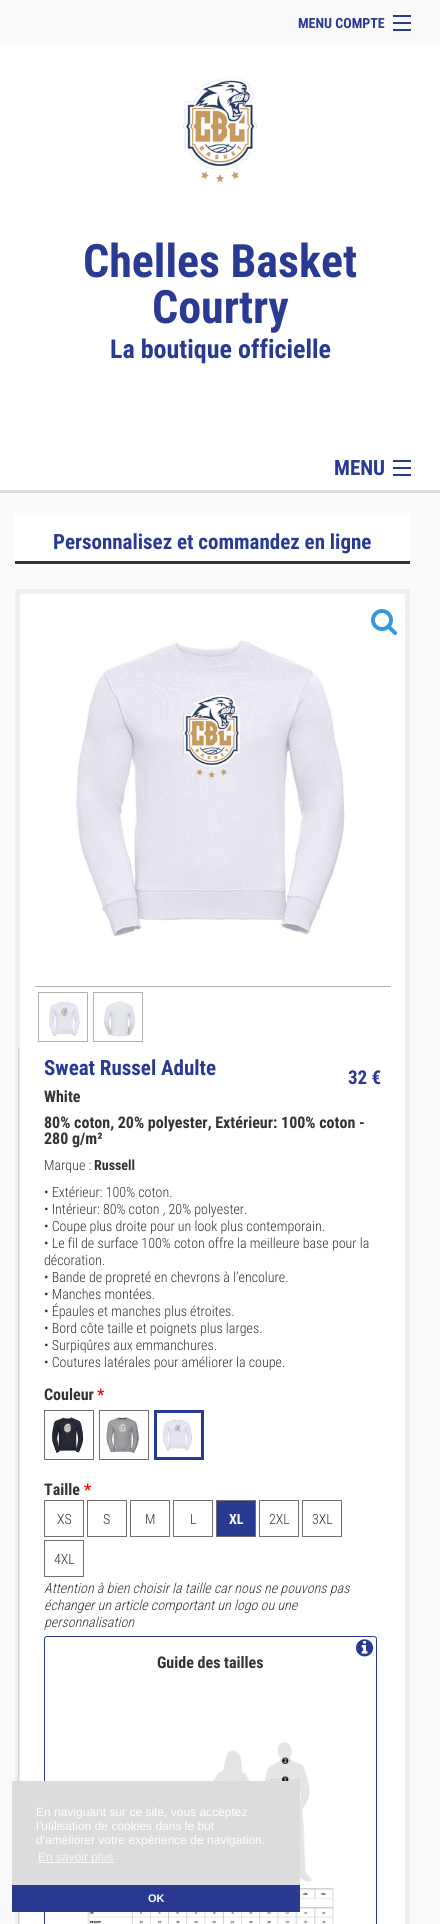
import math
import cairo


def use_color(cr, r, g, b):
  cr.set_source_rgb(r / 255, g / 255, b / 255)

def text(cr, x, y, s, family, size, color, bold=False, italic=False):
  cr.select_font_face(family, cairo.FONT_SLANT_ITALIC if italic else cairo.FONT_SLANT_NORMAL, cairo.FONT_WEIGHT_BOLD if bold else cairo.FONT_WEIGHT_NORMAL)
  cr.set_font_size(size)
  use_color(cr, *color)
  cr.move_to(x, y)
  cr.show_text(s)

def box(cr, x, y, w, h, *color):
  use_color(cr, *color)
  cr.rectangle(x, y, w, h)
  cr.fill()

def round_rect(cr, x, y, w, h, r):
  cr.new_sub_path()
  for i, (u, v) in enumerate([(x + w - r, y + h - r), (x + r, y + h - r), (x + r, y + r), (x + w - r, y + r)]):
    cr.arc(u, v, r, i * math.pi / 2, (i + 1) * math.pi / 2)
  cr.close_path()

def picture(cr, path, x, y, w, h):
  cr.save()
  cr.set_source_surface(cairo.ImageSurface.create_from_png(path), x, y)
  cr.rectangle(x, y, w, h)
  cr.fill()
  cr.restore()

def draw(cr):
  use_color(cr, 250, 250, 250)
  cr.paint()
  box(cr, 393, 29, 18, 2, 42, 58, 146)
  box(cr, 393, 22, 18, 2, 42, 58, 146)
  box(cr, 393, 15, 18, 2, 42, 58, 146)
  box(cr, 0, 45, 440, 445, 255, 255, 255)
  picture(cr, "img_01.png", 183, 78, 74, 104)
  box(cr, 0, 490, 440, 3, 220, 220, 220)
  box(cr, 393, 474, 18, 2, 42, 58, 146)
  box(cr, 393, 467, 18, 2, 42, 58, 146)
  box(cr, 393, 460, 18, 2, 42, 58, 146)
  box(cr, 15, 513, 395, 48, 255, 255, 255)
  box(cr, 15, 561, 395, 3, 51, 51, 51)
  use_color(cr, 255, 255, 255)
  cr.rectangle(17.5, 591.5, 390, 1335)
  cr.fill_preserve()
  use_color(cr, 240, 240, 240)
  cr.set_line_width(5)
  cr.stroke()
  picture(cr, "img_02.png", 371, 609, 26, 26)
  picture(cr, "img_03.png", 76, 640, 269, 297)
  box(cr, 35, 986, 356, 1, 176, 176, 176)
  cr.rectangle(38.5, 992.5, 49, 49)
  cr.set_line_width(1)
  cr.stroke()
  picture(cr, "img_04.png", 49, 1001, 31, 35)
  cr.rectangle(93.5, 992.5, 49, 49)
  cr.stroke()
  picture(cr, "img_05.png", 104, 1001, 32, 36)
  box(cr, 18, 1047, 1, 877, 208, 208, 208)
  cr.rectangle(44.5, 1410.5, 49, 49)
  use_color(cr, 112, 112, 112)
  cr.stroke()
  picture(cr, "img_06.png", 52, 1417, 32, 36)
  cr.rectangle(99.5, 1410.5, 49, 49)
  cr.stroke()
  picture(cr, "img_07.png", 106, 1417, 33, 36)
  cr.rectangle(155.5, 1411.5, 47, 47)
  use_color(cr, 42, 58, 146)
  cr.set_line_width(3)
  cr.stroke()
  picture(cr, "img_08.png", 162, 1419, 30, 32)
  cr.rectangle(44.5, 1500.5, 39, 36)
  use_color(cr, 112, 112, 112)
  cr.set_line_width(1)
  cr.stroke()
  cr.rectangle(87.5, 1500.5, 39, 36)
  cr.stroke()
  cr.rectangle(130.5, 1500.5, 39, 36)
  cr.stroke()
  cr.rectangle(173.5, 1500.5, 39, 36)
  cr.stroke()
  use_color(cr, 42, 58, 146)
  cr.rectangle(216.5, 1500.5, 39, 36)
  cr.fill_preserve()
  use_color(cr, 112, 112, 112)
  cr.stroke()
  cr.rectangle(259.5, 1500.5, 39, 36)
  cr.stroke()
  cr.rectangle(302.5, 1500.5, 39, 36)
  cr.stroke()
  cr.rectangle(44.5, 1540.5, 39, 36)
  cr.stroke()
  round_rect(cr, 44.5, 1636.5, 332, 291, 2.5)
  use_color(cr, 42, 58, 146)
  cr.stroke()
  picture(cr, "img_09.png", 356, 1639, 18, 18)
  picture(cr, "img_10.png", 87, 1742, 247, 182)
  box(cr, 12, 1781, 288, 104, 220, 220, 220)
  box(cr, 38, 1862, 76, 1, 248, 248, 248)
  box(cr, 12, 1885, 288, 27, 42, 58, 146)
  text(cr, 298, 28, "MENU COMPTE", "Roboto Condensed", 14, (42, 58, 146), bold=True)
  text(cr, 83, 277, "Chelles Basket", "Roboto Condensed", 46, (42, 58, 146), bold=True)
  text(cr, 152, 323, "Courtry", "Roboto Condensed", 46, (42, 58, 146), bold=True)
  text(cr, 110, 358, "La boutique officielle", "Roboto Condensed", 26, (42, 58, 146), bold=True)
  text(cr, 334, 475, "MENU", "Roboto Condensed", 21, (42, 58, 146), bold=True)
  text(cr, 53, 549, "Personnalisez et commandez en ligne", "Roboto Condensed", 21, (42, 58, 146), bold=True)
  text(cr, 44, 1075, "Sweat Russel Adulte", "Roboto Condensed", 21, (42, 58, 146), bold=True)
  text(cr, 348, 1084, "32 €", "Roboto Condensed", 19, (42, 58, 146), bold=True)
  text(cr, 44, 1102, "White", "Roboto Condensed", 16, (51, 51, 51), bold=True)
  text(cr, 44, 1128, "80% coton, 20% polyester, Extérieur: 100% coton -", "Roboto Condensed", 16, (51, 51, 51), bold=True)
  text(cr, 44, 1144, "280 g/m²", "Roboto Condensed", 16, (51, 51, 51), bold=True)
  text(cr, 44, 1170, "Marque :", "Roboto Condensed Light", 14, (51, 51, 51))
  text(cr, 94, 1170, "Russell", "Roboto Condensed", 14, (51, 51, 51), bold=True)
  text(cr, 44, 1197, "• Extérieur: 100% coton.", "Roboto Condensed Light", 14, (51, 51, 51))
  text(cr, 44, 1214, "• Intérieur: 80% coton , 20% polyester.", "Roboto Condensed Light", 14, (51, 51, 51))
  text(cr, 44, 1231, "• Coupe plus droite pour un look plus contemporain.", "Roboto Condensed Light", 14, (51, 51, 51))
  text(cr, 44, 1248, "• Le fil de surface 100% coton offre la meilleure base pour la", "Roboto Condensed Light", 14, (51, 51, 51))
  text(cr, 44, 1265, "décoration.", "Roboto Condensed Light", 14, (51, 51, 51))
  text(cr, 44, 1282, "• Bande de propreté en chevrons à l’encolure.", "Roboto Condensed Light", 14, (51, 51, 51))
  text(cr, 44, 1299, "• Manches montées.", "Roboto Condensed Light", 14, (51, 51, 51))
  text(cr, 44, 1316, "• Épaules et manches plus étroites.", "Roboto Condensed Light", 14, (51, 51, 51))
  text(cr, 44, 1333, "• Bord côte taille et poignets plus larges.", "Roboto Condensed Light", 14, (51, 51, 51))
  text(cr, 44, 1350, "• Surpiqûres aux emmanchures.", "Roboto Condensed Light", 14, (51, 51, 51))
  text(cr, 44, 1367, "• Coutures latérales pour améliorer la coupe.", "Roboto Condensed Light", 14, (51, 51, 51))
  text(cr, 44, 1400, "Couleur", "Roboto Condensed", 16, (51, 51, 51), bold=True)
  text(cr, 97, 1400, "*", "Roboto Condensed", 16, (255, 0, 0), bold=True)
  text(cr, 44, 1495, "Taille", "Roboto Condensed", 16, (51, 51, 51), bold=True)
  text(cr, 84, 1495, "*", "Roboto Condensed", 16, (255, 0, 0), bold=True)
  text(cr, 57, 1524, "XS", "Roboto Condensed Light", 14, (51, 51, 51))
  text(cr, 103, 1524, "S", "Roboto Condensed Light", 14, (51, 51, 51))
  text(cr, 145, 1524, "M", "Roboto Condensed Light", 14, (51, 51, 51))
  text(cr, 190, 1524, "L", "Roboto Condensed Light", 14, (51, 51, 51))
  text(cr, 229, 1524, "XL", "Roboto Condensed", 14, (255, 255, 255), bold=True)
  text(cr, 269, 1524, "2XL", "Roboto Condensed Light", 14, (51, 51, 51))
  text(cr, 312, 1524, "3XL", "Roboto Condensed Light", 14, (51, 51, 51))
  text(cr, 54, 1564, "4XL", "Roboto Condensed Light", 14, (51, 51, 51))
  text(cr, 44, 1593, "Attention à bien choisir la taille car nous ne pouvons pas", "Roboto Condensed Light", 14, (51, 51, 51), italic=True)
  text(cr, 44, 1610, "échanger un article comportant un logo ou une", "Roboto Condensed Light", 14, (51, 51, 51), italic=True)
  text(cr, 44, 1627, "personnalisation", "Roboto Condensed Light", 14, (51, 51, 51), italic=True)
  text(cr, 157, 1668, "Guide des tailles", "Roboto Condensed", 16, (51, 51, 51), bold=True)
  text(cr, 36, 1816, "En naviguant sur ce site, vous acceptez", "Liberation Sans", 12, (255, 255, 255))
  text(cr, 36, 1830, "l’utilisation de cookies dans le but", "Liberation Sans", 12, (255, 255, 255))
  text(cr, 36, 1844, "d'améliorer votre expérience de navigation.", "Liberation Sans", 12, (255, 255, 255))
  text(cr, 38, 1861, "En savoir plus", "Liberation Sans", 12, (248, 248, 248))
  text(cr, 148, 1902, "OK", "Liberation Sans", 11, (255, 255, 255), bold=True)


surface = cairo.ImageSurface(cairo.FORMAT_RGB24, 440, 1924)
cr = cairo.Context(surface)
options = cairo.FontOptions()
options.set_hint_metrics(cairo.HINT_METRICS_OFF)
options.set_hint_style(cairo.HINT_STYLE_NONE)
cr.set_font_options(options)
cr.set_miter_limit(4)
draw(cr)
surface.write_to_png("out.png")
